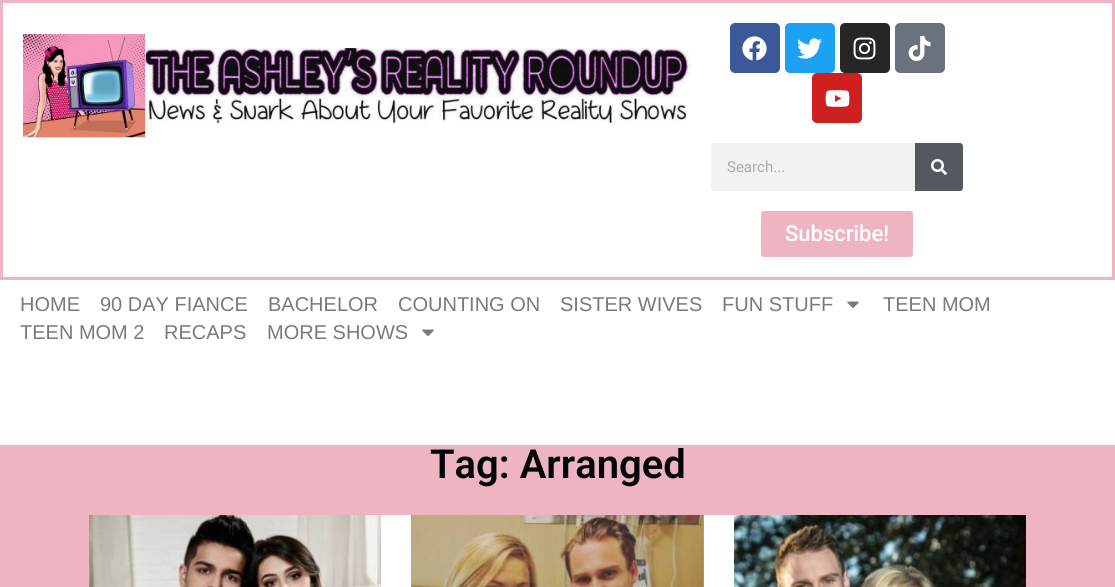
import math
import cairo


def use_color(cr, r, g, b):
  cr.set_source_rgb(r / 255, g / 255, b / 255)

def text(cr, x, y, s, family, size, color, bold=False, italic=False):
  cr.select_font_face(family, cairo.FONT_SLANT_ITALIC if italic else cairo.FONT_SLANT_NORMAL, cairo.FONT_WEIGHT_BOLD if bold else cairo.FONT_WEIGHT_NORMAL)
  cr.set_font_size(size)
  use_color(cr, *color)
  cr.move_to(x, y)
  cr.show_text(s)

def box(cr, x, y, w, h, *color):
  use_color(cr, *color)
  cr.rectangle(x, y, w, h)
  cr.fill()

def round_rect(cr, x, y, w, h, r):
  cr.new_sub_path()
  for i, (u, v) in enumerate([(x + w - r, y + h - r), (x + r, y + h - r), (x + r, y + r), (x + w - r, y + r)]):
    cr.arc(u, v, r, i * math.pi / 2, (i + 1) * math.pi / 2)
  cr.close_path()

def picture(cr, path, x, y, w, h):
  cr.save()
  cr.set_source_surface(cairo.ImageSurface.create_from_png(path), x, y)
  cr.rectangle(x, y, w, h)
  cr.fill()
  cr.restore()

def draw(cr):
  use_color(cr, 255, 255, 255)
  cr.paint()
  cr.rectangle(1.5, 1.5, 1112, 277)
  use_color(cr, 238, 180, 193)
  cr.set_line_width(3)
  cr.stroke()
  picture(cr, "img_01.png", 23, 33, 668, 105)
  use_color(cr, 59, 89, 152)
  round_rect(cr, 730, 23, 50, 50, 5)
  cr.fill()
  picture(cr, "img_02.png", 742, 36, 25, 25)
  use_color(cr, 29, 161, 242)
  round_rect(cr, 785, 23, 50, 50, 5)
  cr.fill()
  picture(cr, "img_03.png", 797, 38, 25, 21)
  use_color(cr, 38, 38, 38)
  round_rect(cr, 840, 23, 50, 50, 5)
  cr.fill()
  picture(cr, "img_04.png", 853, 37, 23, 23)
  use_color(cr, 105, 114, 125)
  round_rect(cr, 895, 23, 50, 50, 5)
  cr.fill()
  picture(cr, "img_05.png", 908, 36, 23, 25)
  use_color(cr, 205, 32, 31)
  round_rect(cr, 812, 73, 50, 50, 5)
  cr.fill()
  picture(cr, "img_06.png", 825, 90, 25, 17)
  use_color(cr, 241, 242, 243)
  round_rect(cr, 711, 143, 252, 48, 3)
  cr.fill()
  use_color(cr, 84, 89, 95)
  cr.new_path()
  cr.move_to(915, 143)
  cr.line_to(960, 143)
  cr.curve_to(961.5, 143, 963, 144.5, 963, 146)
  cr.line_to(963, 188)
  cr.curve_to(963, 189.5, 961.5, 191, 960, 191)
  cr.line_to(915, 191)
  cr.close_path()
  cr.fill()
  picture(cr, "img_07.png", 931, 159, 16, 16)
  use_color(cr, 238, 180, 193)
  round_rect(cr, 761, 211, 152, 46, 3)
  cr.fill()
  picture(cr, "img_08.png", 847, 301, 12, 7)
  picture(cr, "img_08.png", 422, 329, 12, 7)
  box(cr, 0, 445, 1115, 142, 238, 180, 193)
  box(cr, 381, 515, 353, 72, 255, 255, 255)
  picture(cr, "img_09.png", 89, 515, 292, 72)
  picture(cr, "img_10.png", 411, 515, 293, 72)
  picture(cr, "img_11.png", 734, 515, 292, 72)
  text(cr, 727, 172, "Search...", "Roboto", 15, (170, 170, 170))
  text(cr, 785, 241, "Subscribe!", "Roboto Medium", 22, (255, 255, 255))
  text(cr, 20, 311, "HOME", "Liberation Sans", 20, (122, 122, 122))
  text(cr, 100, 311, "90 DAY FIANCE", "Liberation Sans", 20, (122, 122, 122))
  text(cr, 268, 311, "BACHELOR", "Liberation Sans", 20, (122, 122, 122))
  text(cr, 398, 311, "COUNTING ON", "Liberation Sans", 20, (122, 122, 122))
  text(cr, 560, 311, "SISTER WIVES", "Liberation Sans", 20, (122, 122, 122))
  text(cr, 722, 311, "FUN STUFF", "Liberation Sans", 20, (122, 122, 122))
  text(cr, 883, 311, "TEEN MOM", "Liberation Sans", 20, (122, 122, 122))
  text(cr, 20, 339, "TEEN MOM 2", "Liberation Sans", 20, (122, 122, 122))
  text(cr, 164, 339, "RECAPS", "Liberation Sans", 20, (122, 122, 122))
  text(cr, 267, 339, "MORE SHOWS", "Liberation Sans", 20, (122, 122, 122))
  text(cr, 430, 478, "Tag: Arranged", "Roboto SemiBold", 40, (2, 8, 10))


surface = cairo.ImageSurface(cairo.FORMAT_RGB24, 1115, 587)
cr = cairo.Context(surface)
options = cairo.FontOptions()
options.set_hint_metrics(cairo.HINT_METRICS_OFF)
options.set_hint_style(cairo.HINT_STYLE_NONE)
cr.set_font_options(options)
cr.set_miter_limit(4)
draw(cr)
surface.write_to_png("out.png")
